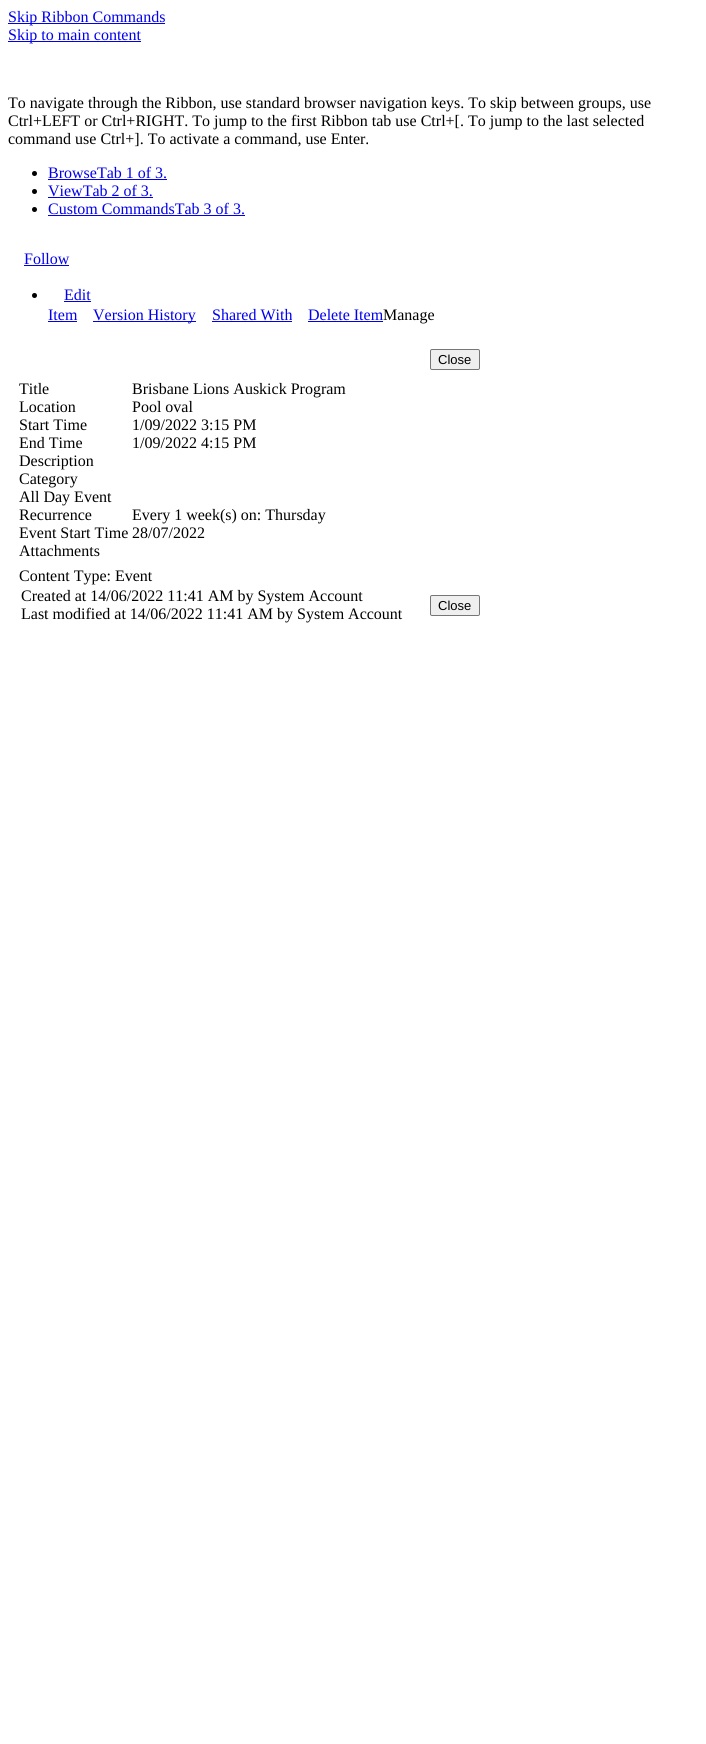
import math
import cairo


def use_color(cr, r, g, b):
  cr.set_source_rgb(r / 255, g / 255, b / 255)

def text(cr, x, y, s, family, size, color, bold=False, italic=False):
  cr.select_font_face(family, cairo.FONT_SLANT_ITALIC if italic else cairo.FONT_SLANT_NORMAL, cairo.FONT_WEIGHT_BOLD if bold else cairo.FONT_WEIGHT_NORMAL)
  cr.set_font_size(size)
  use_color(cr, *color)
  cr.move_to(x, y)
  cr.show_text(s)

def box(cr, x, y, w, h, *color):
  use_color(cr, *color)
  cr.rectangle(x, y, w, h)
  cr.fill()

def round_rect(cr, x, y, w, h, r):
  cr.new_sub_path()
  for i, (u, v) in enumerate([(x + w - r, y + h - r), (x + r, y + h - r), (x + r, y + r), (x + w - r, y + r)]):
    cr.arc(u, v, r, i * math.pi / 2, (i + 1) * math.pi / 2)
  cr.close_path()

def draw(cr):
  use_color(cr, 255, 255, 255)
  cr.paint()
  box(cr, 8, 23, 157, 1, 0, 0, 238)
  box(cr, 8, 41, 133, 1, 0, 0, 238)
  use_color(cr, 0, 0, 0)
  cr.arc(34.5, 173.5, 2.5, 0, 2 * math.pi)
  cr.fill()
  box(cr, 48, 179, 119, 1, 0, 0, 238)
  use_color(cr, 0, 0, 0)
  cr.arc(34.5, 191.5, 2.5, 0, 2 * math.pi)
  cr.fill()
  box(cr, 48, 197, 105, 1, 0, 0, 238)
  use_color(cr, 0, 0, 0)
  cr.arc(34.5, 209.5, 2.5, 0, 2 * math.pi)
  cr.fill()
  box(cr, 48, 215, 197, 1, 0, 0, 238)
  box(cr, 24, 265, 45, 1, 0, 0, 238)
  use_color(cr, 0, 0, 0)
  cr.arc(34.5, 295.5, 2.5, 0, 2 * math.pi)
  cr.fill()
  box(cr, 64, 301, 27, 1, 0, 0, 238)
  box(cr, 48, 321, 29, 1, 0, 0, 238)
  box(cr, 93, 321, 103, 1, 0, 0, 238)
  box(cr, 212, 321, 80, 1, 0, 0, 238)
  box(cr, 308, 321, 75, 1, 0, 0, 238)
  use_color(cr, 239, 239, 239)
  round_rect(cr, 430.5, 349.5, 49, 20, 1.5)
  cr.fill_preserve()
  use_color(cr, 118, 118, 118)
  cr.set_line_width(1)
  cr.stroke()
  use_color(cr, 239, 239, 239)
  round_rect(cr, 430.5, 595.5, 49, 20, 1.5)
  cr.fill_preserve()
  use_color(cr, 118, 118, 118)
  cr.stroke()
  text(cr, 8, 22, "Skip Ribbon Commands", "Liberation Serif", 16, (0, 0, 238))
  text(cr, 8, 40, "Skip to main content", "Liberation Serif", 16, (0, 0, 238))
  text(cr, 8, 108, "To navigate through the Ribbon, use standard browser navigation keys. To skip between groups, use", "Liberation Serif", 16, (0, 0, 0))
  text(cr, 8, 126, "Ctrl+LEFT or Ctrl+RIGHT. To jump to the first Ribbon tab use Ctrl+[. To jump to the last selected", "Liberation Serif", 16, (0, 0, 0))
  text(cr, 8, 144, "command use Ctrl+]. To activate a command, use Enter.", "Liberation Serif", 16, (0, 0, 0))
  text(cr, 48, 178, "BrowseTab 1 of 3.", "Liberation Serif", 16, (0, 0, 238))
  text(cr, 48, 196, "ViewTab 2 of 3.", "Liberation Serif", 16, (0, 0, 238))
  text(cr, 48, 214, "Custom CommandsTab 3 of 3.", "Liberation Serif", 16, (0, 0, 238))
  text(cr, 24, 264, "Follow", "Liberation Serif", 16, (0, 0, 238))
  text(cr, 64, 300, "Edit", "Liberation Serif", 16, (0, 0, 238))
  text(cr, 48, 320, "Item", "Liberation Serif", 16, (0, 0, 238))
  text(cr, 93, 320, "Version History", "Liberation Serif", 16, (0, 0, 238))
  text(cr, 212, 320, "Shared With", "Liberation Serif", 16, (0, 0, 238))
  text(cr, 308, 320, "Delete Item", "Liberation Serif", 16, (0, 0, 238))
  text(cr, 383, 320, "Manage", "Liberation Serif", 16, (0, 0, 0))
  text(cr, 438, 364, "Close", "Liberation Sans", 13, (0, 0, 0))
  text(cr, 19, 394, "Title", "Liberation Serif", 16, (0, 0, 0))
  text(cr, 132, 394, "Brisbane Lions Auskick Program", "Liberation Serif", 16, (0, 0, 0))
  text(cr, 19, 412, "Location", "Liberation Serif", 16, (0, 0, 0))
  text(cr, 132, 412, "Pool oval", "Liberation Serif", 16, (0, 0, 0))
  text(cr, 19, 430, "Start Time", "Liberation Serif", 16, (0, 0, 0))
  text(cr, 132, 430, "1/09/2022 3:15 PM", "Liberation Serif", 16, (0, 0, 0))
  text(cr, 19, 448, "End Time", "Liberation Serif", 16, (0, 0, 0))
  text(cr, 132, 448, "1/09/2022 4:15 PM", "Liberation Serif", 16, (0, 0, 0))
  text(cr, 19, 466, "Description", "Liberation Serif", 16, (0, 0, 0))
  text(cr, 19, 484, "Category", "Liberation Serif", 16, (0, 0, 0))
  text(cr, 19, 502, "All Day Event", "Liberation Serif", 16, (0, 0, 0))
  text(cr, 19, 520, "Recurrence", "Liberation Serif", 16, (0, 0, 0))
  text(cr, 132, 520, "Every 1 week(s) on: Thursday", "Liberation Serif", 16, (0, 0, 0))
  text(cr, 19, 538, "Event Start Time", "Liberation Serif", 16, (0, 0, 0))
  text(cr, 132, 538, "28/07/2022", "Liberation Serif", 16, (0, 0, 0))
  text(cr, 19, 556, "Attachments", "Liberation Serif", 16, (0, 0, 0))
  text(cr, 19, 581, "Content Type: Event", "Liberation Serif", 16, (0, 0, 0))
  text(cr, 21, 601, "Created at 14/06/2022 11:41 AM by System Account", "Liberation Serif", 16, (0, 0, 0))
  text(cr, 21, 619, "Last modified at 14/06/2022 11:41 AM by System Account", "Liberation Serif", 16, (0, 0, 0))
  text(cr, 438, 610, "Close", "Liberation Sans", 13, (0, 0, 0))


surface = cairo.ImageSurface(cairo.FORMAT_RGB24, 706, 1744)
cr = cairo.Context(surface)
options = cairo.FontOptions()
options.set_hint_metrics(cairo.HINT_METRICS_OFF)
options.set_hint_style(cairo.HINT_STYLE_NONE)
cr.set_font_options(options)
cr.set_miter_limit(4)
draw(cr)
surface.write_to_png("out.png")
